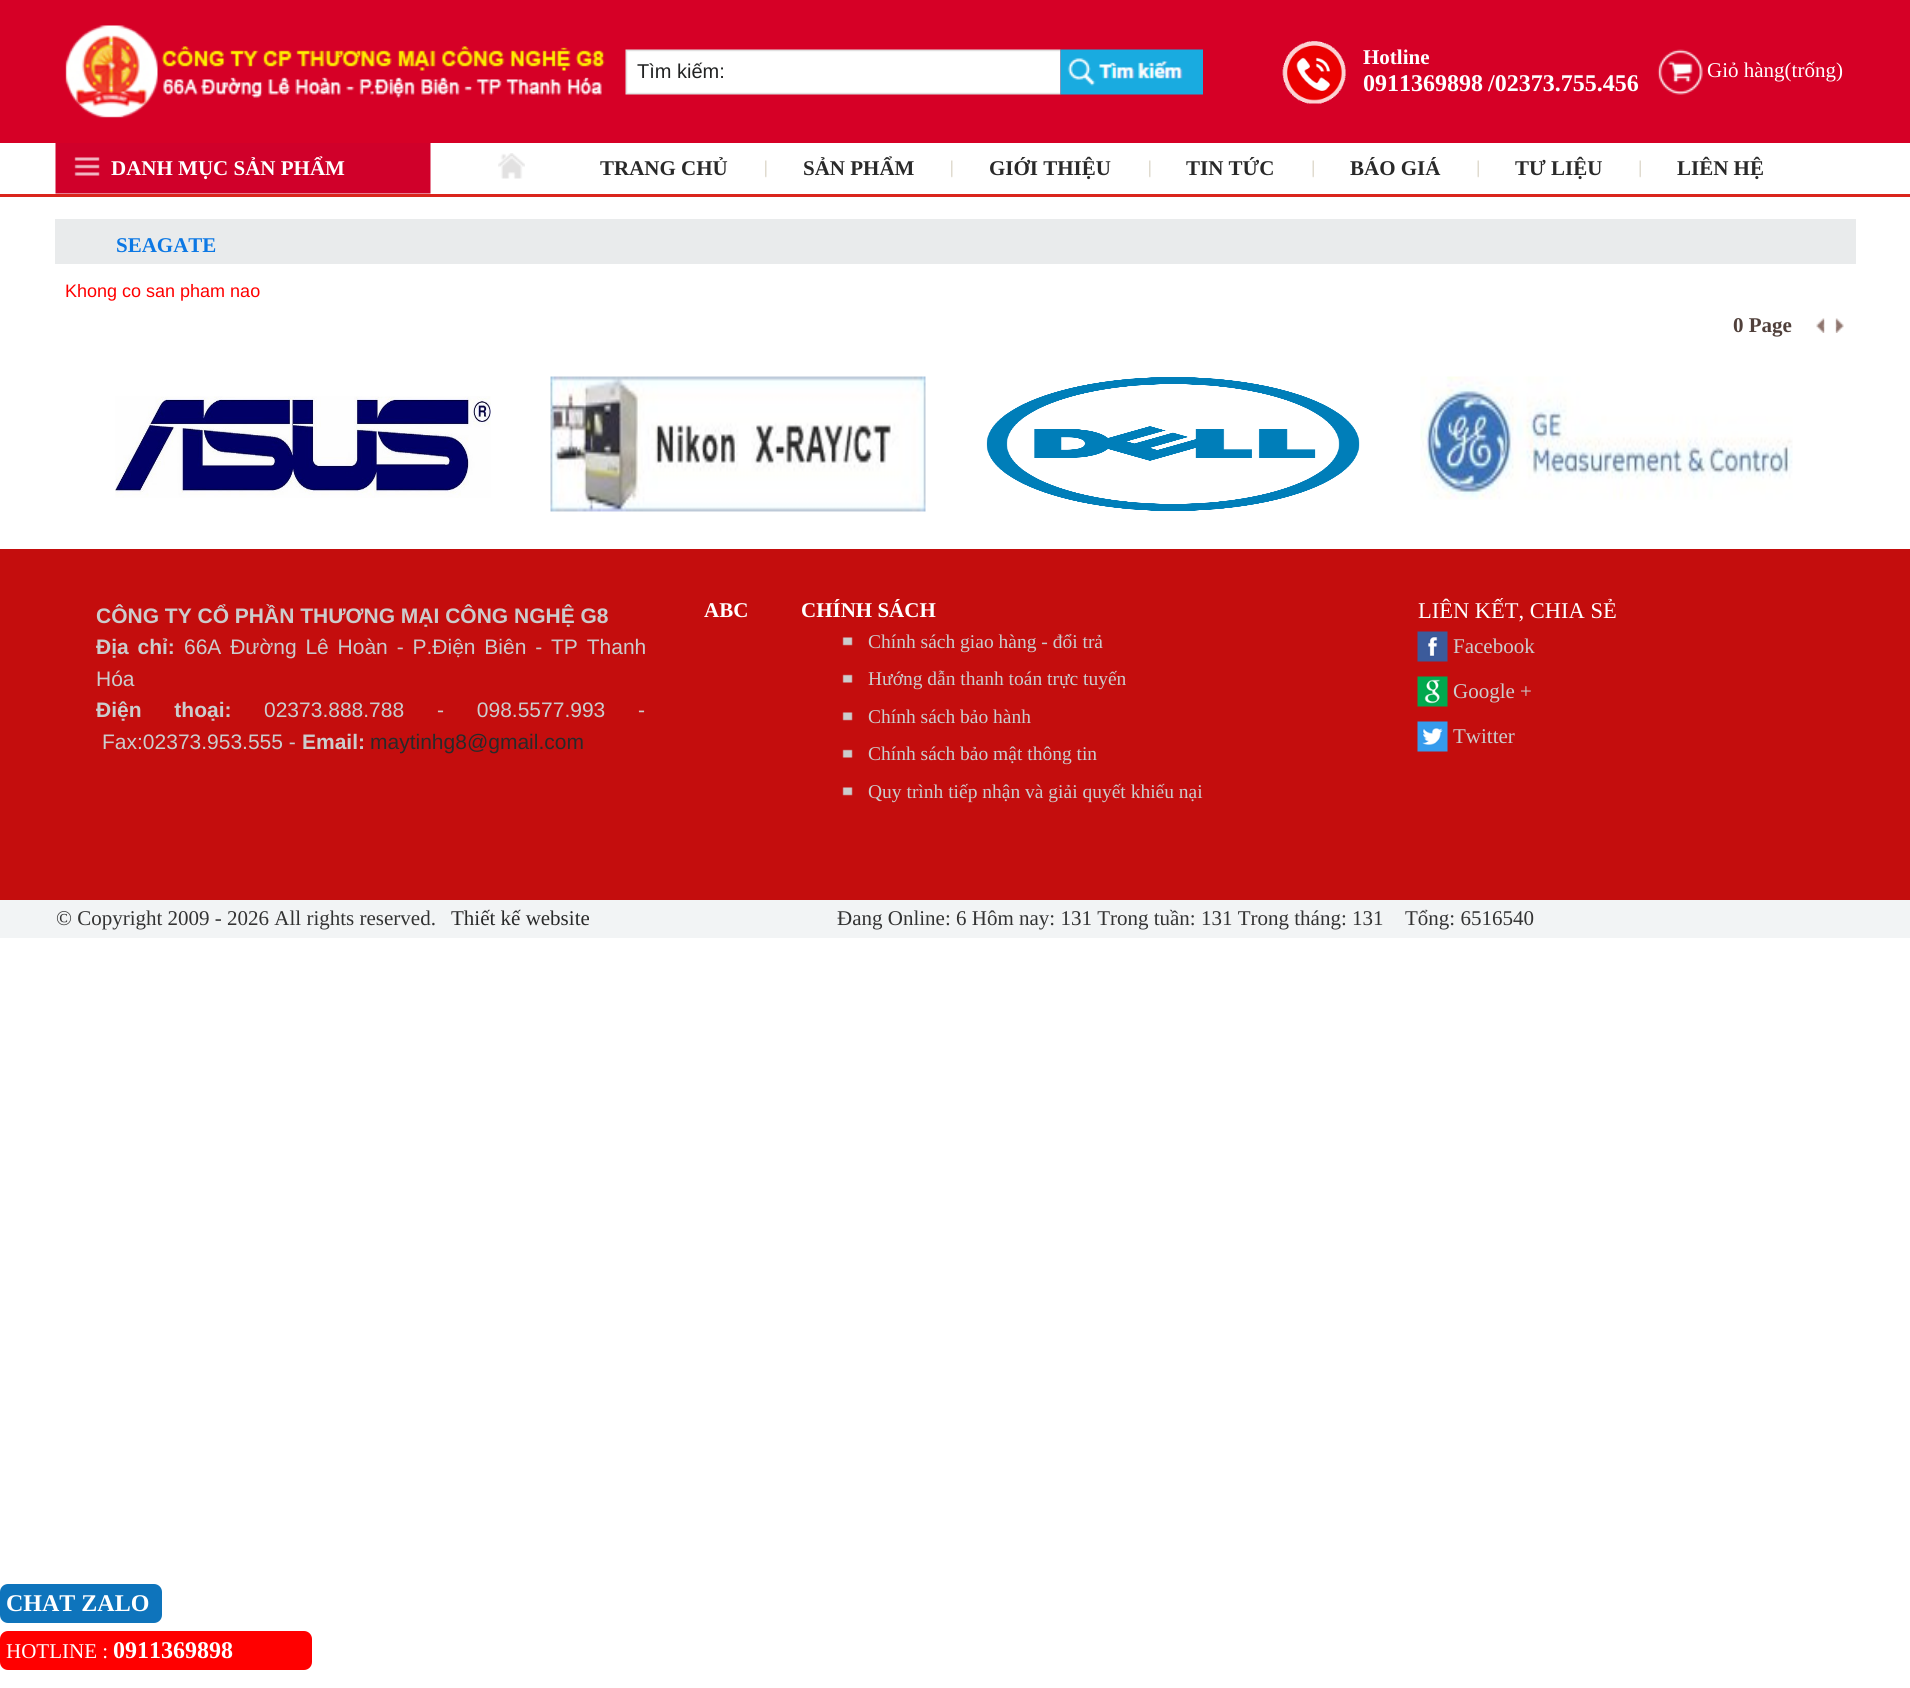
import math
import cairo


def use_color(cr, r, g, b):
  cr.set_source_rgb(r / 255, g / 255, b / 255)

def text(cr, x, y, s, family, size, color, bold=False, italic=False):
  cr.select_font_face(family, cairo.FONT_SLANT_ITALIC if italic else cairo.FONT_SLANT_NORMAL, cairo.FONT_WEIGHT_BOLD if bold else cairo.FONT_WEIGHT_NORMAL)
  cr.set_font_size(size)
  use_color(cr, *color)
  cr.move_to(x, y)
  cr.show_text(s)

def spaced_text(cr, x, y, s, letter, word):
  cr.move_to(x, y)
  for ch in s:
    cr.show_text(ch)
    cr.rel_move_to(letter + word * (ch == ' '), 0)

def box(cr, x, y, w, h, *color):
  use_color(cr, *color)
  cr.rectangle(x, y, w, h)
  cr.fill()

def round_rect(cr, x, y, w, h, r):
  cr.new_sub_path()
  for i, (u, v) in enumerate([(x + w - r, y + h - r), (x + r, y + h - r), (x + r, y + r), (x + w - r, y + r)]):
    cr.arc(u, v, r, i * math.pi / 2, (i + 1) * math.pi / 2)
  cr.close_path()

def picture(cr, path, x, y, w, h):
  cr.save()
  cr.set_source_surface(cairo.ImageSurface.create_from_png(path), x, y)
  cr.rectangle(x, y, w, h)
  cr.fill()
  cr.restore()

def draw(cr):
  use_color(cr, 255, 255, 255)
  cr.paint()
  box(cr, 0, 0, 1910, 143, 214, 0, 38)
  picture(cr, "img_01.png", 65, 25, 540, 93)
  picture(cr, "img_02.png", 625, 49, 436, 46)
  picture(cr, "img_03.png", 1060, 49, 143, 46)
  picture(cr, "img_04.png", 1282, 41, 64, 63)
  picture(cr, "img_05.png", 1657, 49, 46, 46)
  picture(cr, "img_06.png", 55, 143, 376, 51)
  picture(cr, "img_07.png", 498, 153, 27, 26)
  picture(cr, "img_08.png", 765, 160, 2, 18)
  picture(cr, "img_08.png", 951, 160, 2, 18)
  picture(cr, "img_08.png", 1149, 160, 2, 18)
  picture(cr, "img_09.png", 1312, 160, 2, 18)
  picture(cr, "img_09.png", 1477, 160, 2, 18)
  picture(cr, "img_09.png", 1639, 160, 2, 18)
  box(cr, 0, 194, 1910, 3, 218, 37, 28)
  box(cr, 55, 219, 1801, 45, 233, 235, 236)
  picture(cr, "img_10.png", 1816, 318, 9, 15)
  picture(cr, "img_11.png", 1835, 318, 9, 15)
  picture(cr, "img_12.png", 115, 396, 376, 102)
  picture(cr, "img_13.png", 550, 376, 376, 136)
  picture(cr, "img_14.png", 986, 377, 374, 134)
  picture(cr, "img_15.png", 1420, 376, 373, 124)
  box(cr, 0, 549, 1910, 351, 196, 13, 13)
  picture(cr, "img_16.png", 842, 637, 11, 9)
  picture(cr, "img_17.png", 842, 674, 11, 9)
  picture(cr, "img_16.png", 842, 712, 11, 9)
  picture(cr, "img_17.png", 842, 749, 11, 9)
  picture(cr, "img_16.png", 842, 787, 11, 9)
  picture(cr, "img_18.png", 1417, 631, 31, 31)
  picture(cr, "img_19.png", 1417, 676, 31, 31)
  picture(cr, "img_20.png", 1417, 721, 31, 31)
  box(cr, 0, 900, 1910, 38, 242, 244, 245)
  use_color(cr, 14, 116, 188)
  round_rect(cr, 0, 1584, 162, 39, 8)
  cr.fill()
  use_color(cr, 255, 0, 0)
  round_rect(cr, 0, 1631, 312, 39, 8)
  cr.fill()
  text(cr, 637, 78, "Tìm kiếm:", "Liberation Sans", 20, (34, 35, 35))
  text(cr, 1363, 64, "Hotline", "Liberation Serif", 21, (255, 255, 255), bold=True)
  text(cr, 1363, 91, "0911369898", "Liberation Serif", 24, (255, 255, 255), bold=True)
  text(cr, 1488, 91, "/02373.755.456", "Liberation Serif", 24, (255, 255, 255), bold=True)
  text(cr, 1707, 77, "Giỏ hàng(trống)", "Liberation Serif", 21, (255, 255, 255))
  text(cr, 111, 175, "DANH MỤC SẢN PHẨM", "Liberation Serif", 21, (255, 255, 255), bold=True)
  text(cr, 600, 175, "TRANG CHỦ", "Liberation Serif", 21, (41, 41, 41), bold=True)
  text(cr, 803, 175, "SẢN PHẨM", "Liberation Serif", 21, (41, 41, 41), bold=True)
  text(cr, 989, 175, "GIỚI THIỆU", "Liberation Serif", 21, (41, 41, 41), bold=True)
  text(cr, 1186, 175, "TIN TỨC", "Liberation Serif", 21, (41, 41, 41), bold=True)
  text(cr, 1350, 175, "BÁO GIÁ", "Liberation Serif", 21, (41, 41, 41), bold=True)
  text(cr, 1515, 175, "TƯ LIỆU", "Liberation Serif", 21, (41, 41, 41), bold=True)
  text(cr, 1677, 175, "LIÊN HỆ", "Liberation Serif", 21, (41, 41, 41), bold=True)
  text(cr, 116, 252, "SEAGATE", "Liberation Serif", 21, (12, 120, 228), bold=True)
  text(cr, 65, 297, "Khong co san pham nao", "Liberation Sans", 18, (255, 0, 0))
  text(cr, 1733, 332, "0 Page", "Liberation Serif", 21, (80, 64, 59), bold=True)
  text(cr, 96, 623, "CÔNG TY CỔ PHẦN THƯƠNG MẠI CÔNG NGHỆ G8", "Liberation Sans", 21, (204, 204, 204), bold=True)
  spaced_text(cr, 96, 654, "Địa chỉ:", 0, 3)
  cr.select_font_face("Liberation Sans")
  spaced_text(cr, 184, 654, "66A Đường Lê Hoàn - P.Điện Biên - TP Thanh", 0, 3)
  text(cr, 96, 686, "Hóa", "Liberation Sans", 21, (204, 204, 204))
  cr.select_font_face("Liberation Sans", cairo.FONT_SLANT_NORMAL, cairo.FONT_WEIGHT_BOLD)
  spaced_text(cr, 96, 717, "Điện thoại:", 0, 27)
  cr.select_font_face("Liberation Sans")
  spaced_text(cr, 264, 717, "02373.888.788 - 098.5577.993 -", 0, 27)
  text(cr, 102, 749, "Fax:02373.953.555 -", "Liberation Sans", 21, (204, 204, 204))
  text(cr, 302, 749, "Email:", "Liberation Sans", 21, (204, 204, 204), bold=True)
  text(cr, 370, 749, "maytinhg8@gmail.com", "Liberation Sans", 21, (41, 41, 41))
  text(cr, 704, 617, "ABC", "Liberation Serif", 21, (255, 255, 255), bold=True)
  text(cr, 801, 617, "CHÍNH SÁCH", "Liberation Serif", 21, (255, 255, 255), bold=True)
  text(cr, 868, 648, "Chính sách giao hàng - đổi trả", "Liberation Serif", 19.5, (204, 204, 204))
  text(cr, 868, 685, "Hướng dẫn thanh toán trực tuyến", "Liberation Serif", 19.5, (204, 204, 204))
  text(cr, 868, 723, "Chính sách bảo hành", "Liberation Serif", 19.5, (204, 204, 204))
  text(cr, 868, 760, "Chính sách bảo mật thông tin", "Liberation Serif", 19.5, (204, 204, 204))
  text(cr, 868, 798, "Quy trình tiếp nhận và giải quyết khiếu nại", "Liberation Serif", 19.5, (204, 204, 204))
  text(cr, 1418, 618, "LIÊN KẾT, CHIA SẺ", "Liberation Serif", 22.5, (255, 255, 255))
  text(cr, 1453, 653, "Facebook", "Liberation Serif", 21, (204, 204, 204))
  text(cr, 1453, 698, "Google +", "Liberation Serif", 21, (204, 204, 204))
  text(cr, 1453, 743, "Twitter", "Liberation Serif", 21, (204, 204, 204))
  text(cr, 56, 925, "© Copyright 2009 - 2026 All rights reserved.", "Liberation Serif", 21, (51, 51, 51))
  text(cr, 451, 925, "Thiết kế website", "Liberation Serif", 21, (41, 41, 41))
  text(cr, 837, 925, "Đang Online: 6 Hôm nay: 131 Trong tuần: 131 Trong tháng: 131", "Liberation Serif", 21, (51, 51, 51))
  text(cr, 1405, 925, "Tổng: 6516540", "Liberation Serif", 21, (51, 51, 51))
  text(cr, 6, 1611, "CHAT ZALO", "Liberation Serif", 24, (255, 255, 255), bold=True)
  text(cr, 6, 1658, "HOTLINE :", "Liberation Serif", 21, (255, 255, 255))
  text(cr, 113, 1658, "0911369898", "Liberation Serif", 24, (255, 255, 255), bold=True)


surface = cairo.ImageSurface(cairo.FORMAT_RGB24, 1910, 1688)
cr = cairo.Context(surface)
options = cairo.FontOptions()
options.set_hint_metrics(cairo.HINT_METRICS_OFF)
options.set_hint_style(cairo.HINT_STYLE_NONE)
cr.set_font_options(options)
cr.set_miter_limit(4)
draw(cr)
surface.write_to_png("out.png")
